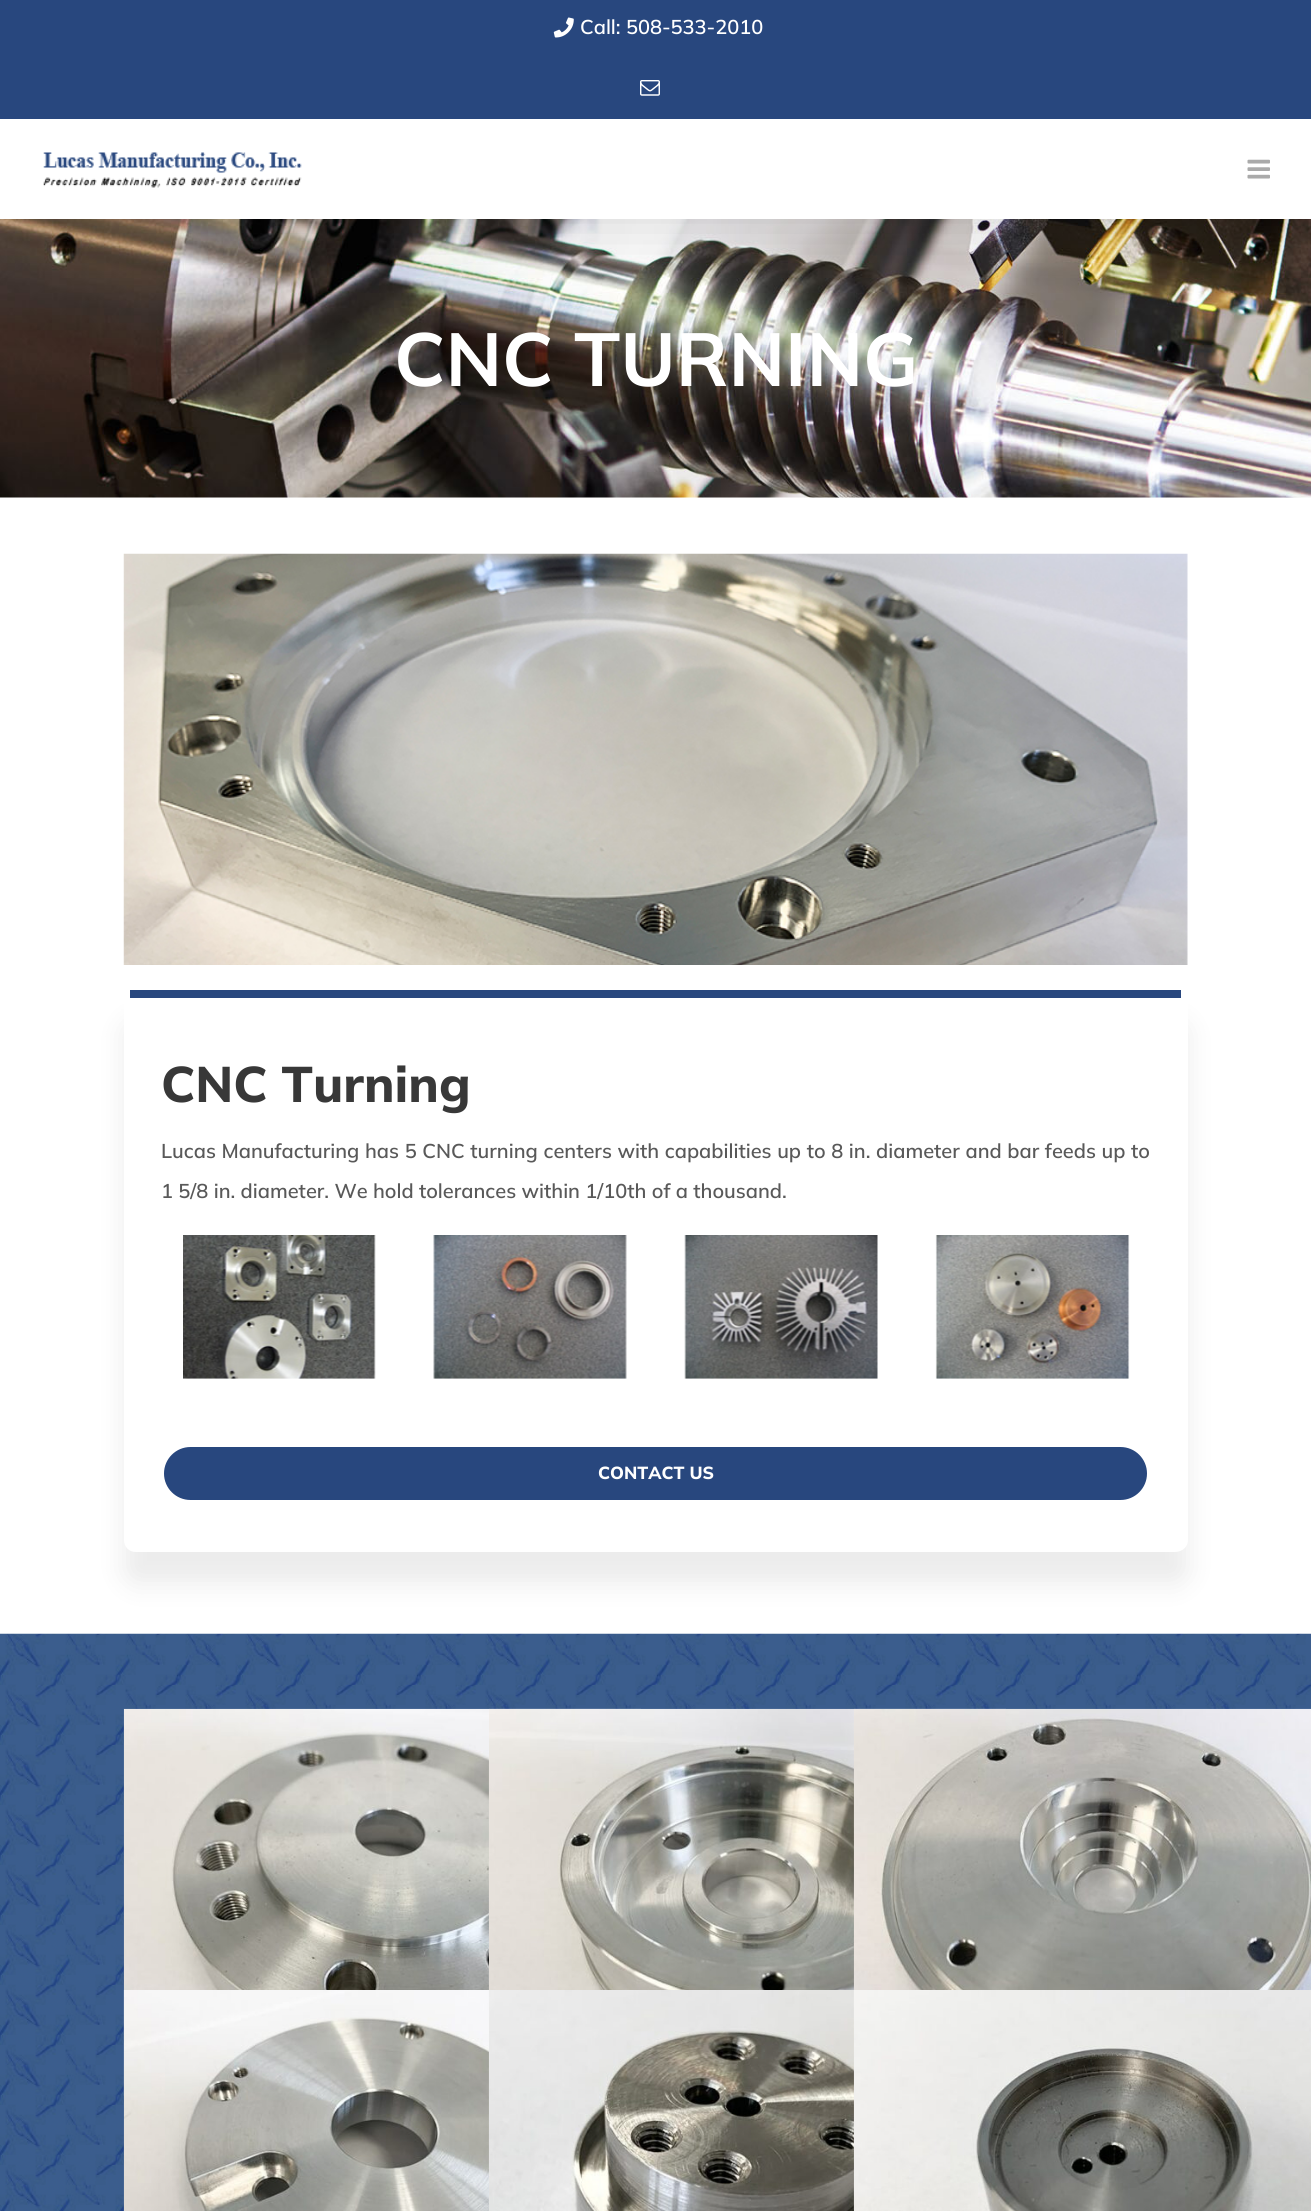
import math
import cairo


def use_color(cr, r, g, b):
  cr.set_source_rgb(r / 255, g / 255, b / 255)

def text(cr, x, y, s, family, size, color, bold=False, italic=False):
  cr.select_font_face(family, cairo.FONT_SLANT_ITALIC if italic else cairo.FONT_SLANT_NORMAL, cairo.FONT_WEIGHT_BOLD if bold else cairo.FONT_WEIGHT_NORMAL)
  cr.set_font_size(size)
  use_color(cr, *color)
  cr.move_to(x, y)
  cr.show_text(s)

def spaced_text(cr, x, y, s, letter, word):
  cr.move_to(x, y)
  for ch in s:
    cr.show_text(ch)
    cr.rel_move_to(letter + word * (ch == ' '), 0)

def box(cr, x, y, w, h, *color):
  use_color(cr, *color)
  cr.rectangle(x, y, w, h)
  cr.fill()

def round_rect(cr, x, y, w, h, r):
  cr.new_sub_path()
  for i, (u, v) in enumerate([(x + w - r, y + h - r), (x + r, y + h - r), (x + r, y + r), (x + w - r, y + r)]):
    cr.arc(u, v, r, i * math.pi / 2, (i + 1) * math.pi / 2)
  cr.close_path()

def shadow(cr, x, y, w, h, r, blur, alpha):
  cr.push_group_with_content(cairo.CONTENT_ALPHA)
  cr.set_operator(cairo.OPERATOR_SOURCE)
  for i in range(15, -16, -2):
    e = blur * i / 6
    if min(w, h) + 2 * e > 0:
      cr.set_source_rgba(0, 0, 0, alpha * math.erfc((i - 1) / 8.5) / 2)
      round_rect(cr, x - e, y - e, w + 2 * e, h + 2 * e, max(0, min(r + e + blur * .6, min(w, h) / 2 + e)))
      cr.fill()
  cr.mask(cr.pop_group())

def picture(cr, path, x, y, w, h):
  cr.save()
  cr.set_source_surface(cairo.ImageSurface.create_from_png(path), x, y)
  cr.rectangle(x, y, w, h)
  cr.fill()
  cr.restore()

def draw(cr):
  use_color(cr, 255, 255, 255)
  cr.paint()
  picture(cr, "img_05.png", 0, 219, 1311, 279)
  use_color(cr, 0, 0, 0)
  shadow(cr, 3, 15, 1306, 214, 0, 31, 0.14)
  box(cr, 0, 0, 1311, 119, 40, 71, 126)
  picture(cr, "img_01.png", 553, 17, 21, 21)
  picture(cr, "img_02.png", 640, 80, 20, 16)
  box(cr, 0, 119, 1311, 100, 255, 255, 255)
  picture(cr, "img_03.png", 43, 152, 259, 36)
  picture(cr, "img_04.png", 1247, 159, 23, 20)
  picture(cr, "img_06.png", 123, 553, 1065, 412)
  use_color(cr, 61, 61, 61)
  shadow(cr, 124, 1021, 1064, 563, 13, 12.5, 0.1)
  use_color(cr, 255, 255, 255)
  cr.new_path()
  cr.move_to(136, 998)
  cr.line_to(1175, 998)
  cr.curve_to(1182, 998, 1188, 1000, 1188, 1002)
  cr.line_to(1188, 1540)
  cr.curve_to(1188, 1547, 1182, 1552, 1175, 1552)
  cr.line_to(136, 1552)
  cr.curve_to(129, 1552, 124, 1547, 124, 1540)
  cr.line_to(124, 1002)
  cr.curve_to(124, 1000, 129, 998, 136, 998)
  cr.close_path()
  cr.fill()
  box(cr, 130, 990, 1051, 8, 40, 71, 126)
  picture(cr, "img_07.png", 183, 1235, 193, 144)
  picture(cr, "img_08.png", 433, 1235, 194, 144)
  picture(cr, "img_09.png", 684, 1235, 194, 144)
  picture(cr, "img_10.png", 935, 1235, 195, 144)
  round_rect(cr, 162.5, 1445.5, 986, 56, 28)
  cr.fill_preserve()
  use_color(cr, 255, 255, 255)
  cr.set_line_width(3)
  cr.stroke()
  picture(cr, "img_11.png", 0, 1633, 1311, 578)
  picture(cr, "img_12.png", 123, 1708, 518, 388)
  picture(cr, "img_13.png", 488, 1708, 518, 282)
  picture(cr, "img_14.png", 853, 1708, 458, 282)
  picture(cr, "img_15.png", 123, 1990, 366, 221)
  picture(cr, "img_16.png", 488, 1990, 366, 221)
  picture(cr, "img_17.png", 853, 1990, 458, 221)
  text(cr, 580, 34, "Call: 508-533-2010", "Mulish SemiBold", 20, (255, 255, 255))
  text(cr, 394, 386, "CNC TURNING", "Mulish", 75, (255, 255, 255), bold=True)
  text(cr, 161, 1102, "CNC Turning", "Mulish ExtraBold", 50, (56, 56, 56))
  cr.select_font_face("Mulish SemiBold")
  cr.set_font_size(20)
  use_color(cr, 89, 89, 89)
  spaced_text(cr, 161, 1158, "Lucas Manufacturing has 5 CNC turning centers with capabilities up to 8 in. diameter and bar feeds up to", 0, 0.3)
  text(cr, 161, 1198, "1 5/8 in. diameter. We hold tolerances within 1/10th of a thousand.", "Mulish SemiBold", 20, (89, 89, 89))
  text(cr, 598, 1479, "CONTACT US", "Mulish ExtraBold", 17.5, (255, 255, 255))


surface = cairo.ImageSurface(cairo.FORMAT_RGB24, 1311, 2211)
cr = cairo.Context(surface)
options = cairo.FontOptions()
options.set_hint_metrics(cairo.HINT_METRICS_OFF)
options.set_hint_style(cairo.HINT_STYLE_NONE)
cr.set_font_options(options)
cr.set_miter_limit(4)
draw(cr)
surface.write_to_png("out.png")
